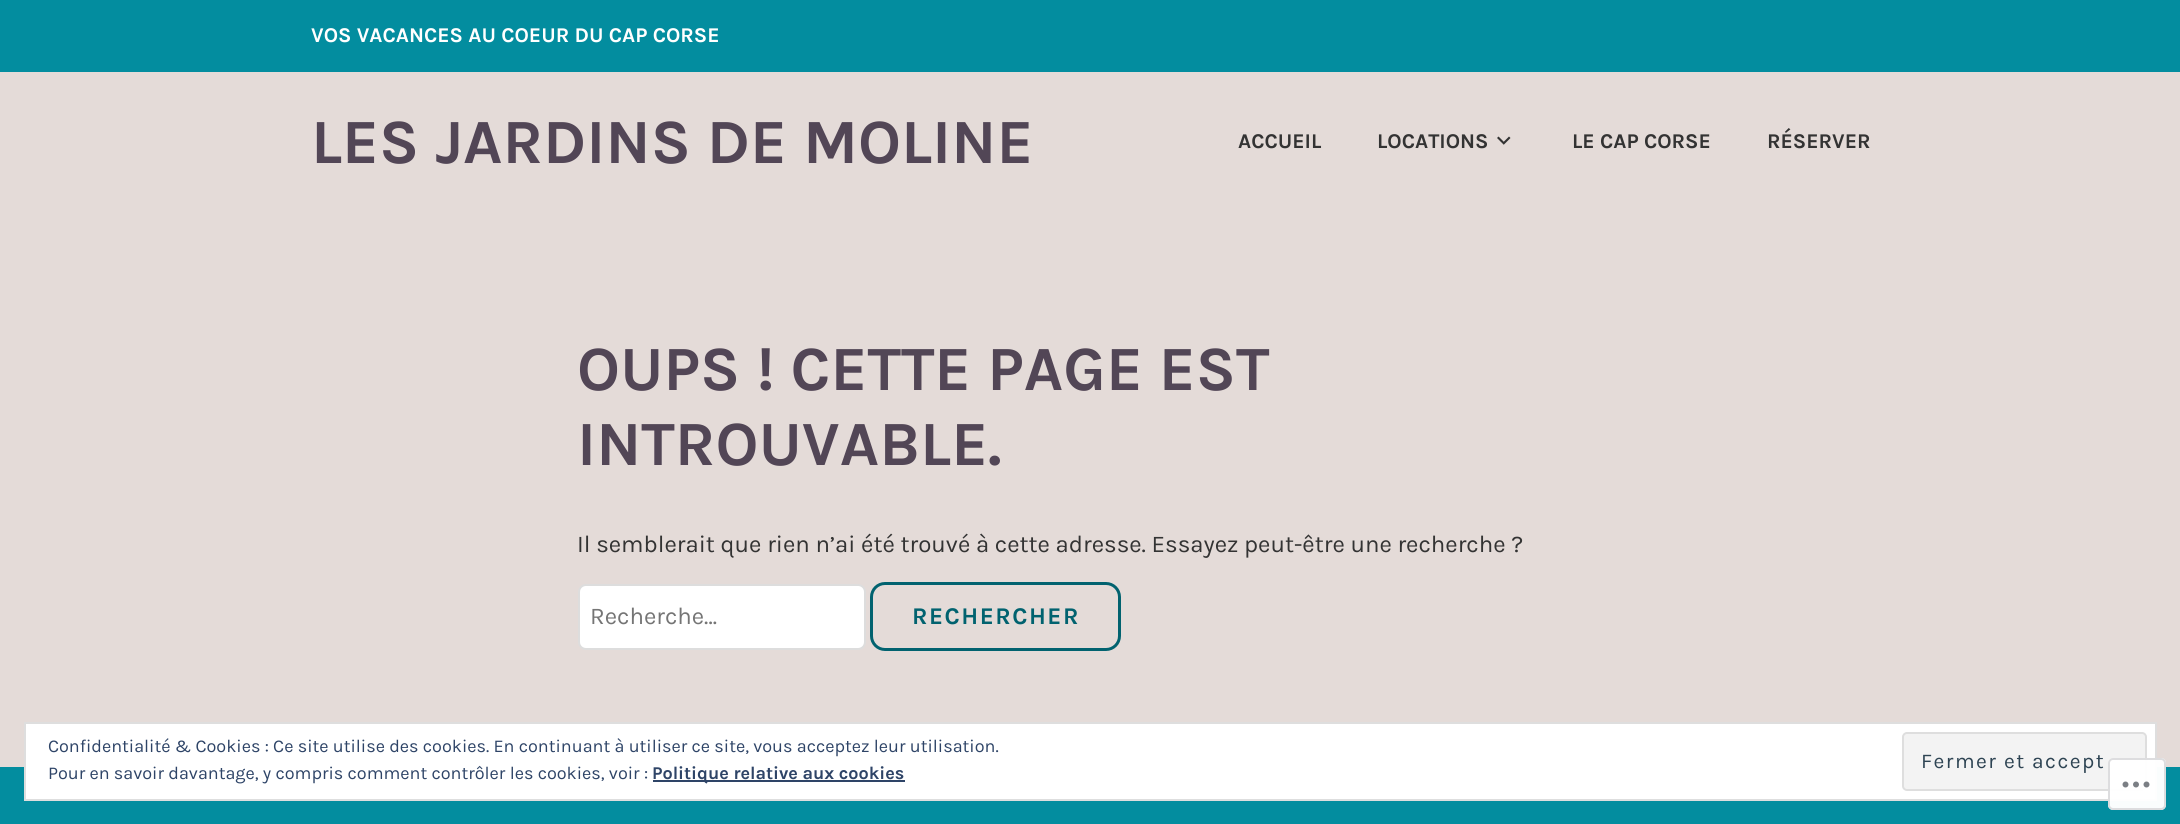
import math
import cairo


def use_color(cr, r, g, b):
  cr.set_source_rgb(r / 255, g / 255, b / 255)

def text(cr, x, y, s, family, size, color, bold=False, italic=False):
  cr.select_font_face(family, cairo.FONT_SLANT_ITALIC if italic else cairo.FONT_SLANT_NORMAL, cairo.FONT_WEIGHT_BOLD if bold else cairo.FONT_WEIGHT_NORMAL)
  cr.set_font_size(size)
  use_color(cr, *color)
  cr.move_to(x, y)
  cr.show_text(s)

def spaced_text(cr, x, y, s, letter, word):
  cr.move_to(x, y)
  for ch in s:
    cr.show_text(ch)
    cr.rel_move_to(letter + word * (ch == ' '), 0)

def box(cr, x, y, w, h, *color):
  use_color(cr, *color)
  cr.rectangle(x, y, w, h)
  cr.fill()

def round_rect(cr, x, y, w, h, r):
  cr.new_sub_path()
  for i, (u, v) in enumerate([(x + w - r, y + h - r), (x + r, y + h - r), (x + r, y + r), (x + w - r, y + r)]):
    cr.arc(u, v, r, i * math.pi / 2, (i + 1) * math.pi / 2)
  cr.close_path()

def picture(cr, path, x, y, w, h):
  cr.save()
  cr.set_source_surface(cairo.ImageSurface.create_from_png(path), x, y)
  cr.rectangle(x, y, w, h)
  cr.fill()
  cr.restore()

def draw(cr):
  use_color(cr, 228, 219, 216)
  cr.paint()
  box(cr, 0, 0, 2180, 72, 3, 141, 159)
  picture(cr, "img_01.png", 1497, 136, 14, 9)
  use_color(cr, 255, 255, 255)
  round_rect(cr, 579, 585, 286, 64, 7)
  cr.fill_preserve()
  use_color(cr, 221, 221, 221)
  cr.stroke()
  round_rect(cr, 871.5, 583.5, 248, 66, 13.5)
  use_color(cr, 1, 98, 111)
  cr.set_line_width(3)
  cr.stroke()
  box(cr, 0, 767, 2180, 57, 3, 141, 159)
  use_color(cr, 255, 255, 255)
  cr.rectangle(25, 723, 2131, 77)
  cr.fill_preserve()
  use_color(cr, 222, 222, 222)
  cr.set_line_width(2)
  cr.stroke()
  box(cr, 653, 780, 252, 2, 46, 68, 103)
  use_color(cr, 243, 243, 243)
  round_rect(cr, 1903, 733, 243, 57, 4)
  cr.fill_preserve()
  use_color(cr, 222, 222, 222)
  cr.stroke()
  cr.set_source_rgba(1, 1, 1, 0.98)
  round_rect(cr, 2108, 758, 58, 52, 5)
  cr.fill()
  round_rect(cr, 2109, 759, 56, 50, 4)
  cr.set_source_rgba(0.863, 0.863, 0.871, 0.98)
  cr.stroke()
  picture(cr, "img_02.png", 2122, 781, 28, 7)
  text(cr, 311, 42, "VOS VACANCES AU COEUR DU CAP CORSE", "Karla", 21, (255, 255, 255), bold=True)
  text(cr, 311, 163, "LES JARDINS DE MOLINE", "Karla", 63, (82, 70, 86), bold=True)
  text(cr, 1238, 148, "ACCUEIL", "Karla", 21, (51, 51, 51), bold=True)
  text(cr, 1377, 148, "LOCATIONS", "Karla", 21, (51, 51, 51), bold=True)
  text(cr, 1572, 148, "LE CAP CORSE", "Karla", 21, (51, 51, 51), bold=True)
  text(cr, 1767, 148, "RÉSERVER", "Karla", 21, (51, 51, 51), bold=True)
  text(cr, 577, 390, "OUPS ! CETTE PAGE EST", "Karla", 63, (82, 70, 86), bold=True)
  text(cr, 577, 465, "INTROUVABLE.", "Karla", 63, (82, 70, 86), bold=True)
  text(cr, 577, 552, "Il semblerait que rien n’ai été trouvé à cette adresse. Essayez peut-être une recherche ?", "Karla", 24, (51, 51, 51))
  text(cr, 590, 624, "Recherche…", "Karla", 24, (117, 117, 117))
  cr.select_font_face("Karla", cairo.FONT_SLANT_NORMAL, cairo.FONT_WEIGHT_BOLD)
  use_color(cr, 1, 98, 111)
  spaced_text(cr, 912, 624, "RECHERCHER", 1.5, 0)
  text(cr, 48, 752, "Confidentialité & Cookies : Ce site utilise des cookies. En continuant à utiliser ce site, vous acceptez leur utilisation.", "Karla", 18, (46, 68, 103))
  text(cr, 48, 779, "Pour en savoir davantage, y compris comment contrôler les cookies, voir :", "Karla", 18, (46, 68, 103))
  text(cr, 652, 779, "Politique relative aux cookies", "Karla", 18, (46, 68, 103), bold=True)
  cr.select_font_face("Karla")
  cr.set_font_size(21)
  use_color(cr, 46, 68, 83)
  spaced_text(cr, 1921, 768, "Fermer et accept", 1.5, 0)


surface = cairo.ImageSurface(cairo.FORMAT_RGB24, 2180, 824)
cr = cairo.Context(surface)
options = cairo.FontOptions()
options.set_hint_metrics(cairo.HINT_METRICS_OFF)
options.set_hint_style(cairo.HINT_STYLE_NONE)
cr.set_font_options(options)
cr.set_miter_limit(4)
draw(cr)
surface.write_to_png("out.png")
